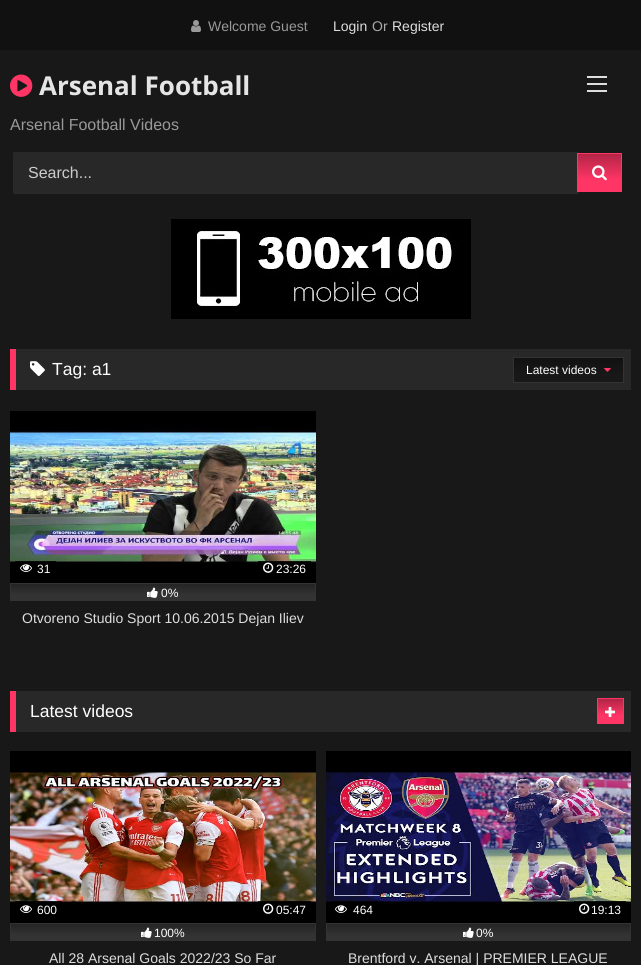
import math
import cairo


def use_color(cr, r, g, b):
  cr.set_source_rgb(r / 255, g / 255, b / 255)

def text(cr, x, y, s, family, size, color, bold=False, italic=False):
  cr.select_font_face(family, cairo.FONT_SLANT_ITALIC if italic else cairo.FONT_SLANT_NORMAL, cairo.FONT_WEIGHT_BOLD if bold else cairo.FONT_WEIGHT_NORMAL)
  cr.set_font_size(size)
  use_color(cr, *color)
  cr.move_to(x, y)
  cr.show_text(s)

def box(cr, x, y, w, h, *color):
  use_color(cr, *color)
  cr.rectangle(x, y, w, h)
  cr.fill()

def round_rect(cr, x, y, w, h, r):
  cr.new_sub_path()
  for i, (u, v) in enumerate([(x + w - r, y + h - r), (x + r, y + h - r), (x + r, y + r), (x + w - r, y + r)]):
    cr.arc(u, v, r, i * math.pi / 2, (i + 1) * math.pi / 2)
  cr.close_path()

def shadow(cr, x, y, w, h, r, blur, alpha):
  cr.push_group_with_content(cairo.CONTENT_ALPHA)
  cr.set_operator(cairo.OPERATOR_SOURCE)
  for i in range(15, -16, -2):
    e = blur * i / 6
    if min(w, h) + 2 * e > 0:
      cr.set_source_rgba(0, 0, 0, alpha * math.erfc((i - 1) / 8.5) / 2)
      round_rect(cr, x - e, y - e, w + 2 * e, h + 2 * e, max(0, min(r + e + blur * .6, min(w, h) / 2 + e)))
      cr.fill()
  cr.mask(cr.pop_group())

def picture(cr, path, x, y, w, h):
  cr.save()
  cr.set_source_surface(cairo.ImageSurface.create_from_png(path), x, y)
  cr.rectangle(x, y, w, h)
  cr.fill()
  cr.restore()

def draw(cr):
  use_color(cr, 24, 24, 24)
  cr.paint()
  box(cr, 0, 0, 641, 50, 17, 17, 17)
  picture(cr, "img_01.png", 191, 20, 10, 12)
  picture(cr, "img_02.png", 10, 74, 23, 23)
  use_color(cr, 255, 255, 255)
  shadow(cr, 14, 153, 564, 40, 0, 0.5, 0.3)
  box(cr, 14, 153, 564, 40, 40, 40, 40)
  gradient = cairo.LinearGradient(600, 154, 600, 191)
  gradient.add_color_stop_rgba(0, 0.702, 0.145, 0.278, 1)
  gradient.add_color_stop_rgba(0.7, 1, 0.208, 0.396, 1)
  cr.set_source(gradient)
  cr.rectangle(578, 154, 43, 37)
  cr.fill()
  cr.rectangle(577.5, 153.5, 44, 38)
  use_color(cr, 255, 53, 101)
  cr.set_line_width(1)
  cr.stroke()
  picture(cr, "img_03.png", 592, 165, 15, 16)
  box(cr, 587, 76, 20, 2, 221, 221, 221)
  box(cr, 587, 83, 20, 2, 221, 221, 221)
  box(cr, 587, 90, 20, 2, 221, 221, 221)
  picture(cr, "img_04.png", 171, 219, 300, 100)
  box(cr, 16, 349, 615, 41, 40, 40, 40)
  box(cr, 10, 349, 6, 41, 255, 53, 101)
  picture(cr, "img_05.png", 30, 361, 15, 15)
  gradient = cairo.LinearGradient(569, 358, 569, 382)
  gradient.add_color_stop_rgba(0, 0.067, 0.067, 0.067, 1)
  gradient.add_color_stop_rgba(0.7, 0.094, 0.094, 0.094, 1)
  cr.set_source(gradient)
  cr.rectangle(514, 358, 109, 24)
  cr.fill()
  cr.rectangle(513.5, 357.5, 110, 25)
  use_color(cr, 51, 51, 51)
  cr.stroke()
  picture(cr, "img_06.png", 604, 368, 7, 4)
  box(cr, 10, 411, 306, 172, 0, 0, 0)
  picture(cr, "img_07.png", 10, 426, 306, 138)
  cr.set_source_rgba(0, 0, 0, 0.8)
  cr.rectangle(15, 561, 41, 3)
  cr.fill()
  picture(cr, "img_08.png", 20, 564, 12, 8)
  cr.rectangle(258, 561, 53, 3)
  cr.fill()
  picture(cr, "img_09.png", 263, 562, 11, 11)
  gradient = cairo.LinearGradient(163, 584, 163, 600)
  gradient.add_color_stop_rgba(0, 0.141, 0.141, 0.141, 1)
  gradient.add_color_stop_rgba(0.7, 0.2, 0.2, 0.2, 1)
  cr.set_source(gradient)
  cr.rectangle(11, 584, 304, 16)
  cr.fill()
  cr.rectangle(10.5, 583.5, 305, 17)
  use_color(cr, 51, 51, 51)
  cr.stroke()
  picture(cr, "img_10.png", 147, 587, 11, 11)
  box(cr, 16, 691, 615, 41, 40, 40, 40)
  box(cr, 10, 691, 6, 41, 255, 53, 101)
  gradient = cairo.LinearGradient(611, 699, 611, 723)
  gradient.add_color_stop_rgba(0, 0.702, 0.145, 0.278, 1)
  gradient.add_color_stop_rgba(0.7, 1, 0.208, 0.396, 1)
  cr.set_source(gradient)
  cr.rectangle(598, 699, 25, 24)
  cr.fill()
  cr.rectangle(597.5, 698.5, 26, 25)
  use_color(cr, 255, 53, 101)
  cr.stroke()
  picture(cr, "img_11.png", 605, 706, 11, 11)
  box(cr, 10, 751, 306, 172, 0, 0, 0)
  picture(cr, "img_12.png", 10, 770, 306, 134)
  cr.set_source_rgba(0, 0, 0, 0.8)
  cr.rectangle(15, 901, 47, 3)
  cr.fill()
  picture(cr, "img_08.png", 20, 905, 12, 8)
  cr.rectangle(258, 901, 53, 3)
  cr.fill()
  picture(cr, "img_13.png", 263, 903, 11, 11)
  gradient = cairo.LinearGradient(163, 924, 163, 940)
  gradient.add_color_stop_rgba(0, 0.141, 0.141, 0.141, 1)
  gradient.add_color_stop_rgba(0.7, 0.2, 0.2, 0.2, 1)
  cr.set_source(gradient)
  cr.rectangle(11, 924, 304, 16)
  cr.fill()
  cr.rectangle(10.5, 923.5, 305, 17)
  use_color(cr, 51, 51, 51)
  cr.stroke()
  picture(cr, "img_10.png", 141, 927, 11, 11)
  box(cr, 326, 751, 305, 172, 0, 0, 0)
  picture(cr, "img_14.png", 326, 768, 305, 136)
  cr.set_source_rgba(0, 0, 0, 0.8)
  cr.rectangle(331, 901, 47, 3)
  cr.fill()
  picture(cr, "img_08.png", 335, 905, 12, 8)
  cr.rectangle(574, 901, 52, 3)
  cr.fill()
  picture(cr, "img_15.png", 579, 903, 11, 11)
  gradient = cairo.LinearGradient(479, 924, 479, 940)
  gradient.add_color_stop_rgba(0, 0.141, 0.141, 0.141, 1)
  gradient.add_color_stop_rgba(0.7, 0.2, 0.2, 0.2, 1)
  cr.set_source(gradient)
  cr.rectangle(327, 924, 303, 16)
  cr.fill()
  cr.rectangle(326.5, 923.5, 304, 17)
  use_color(cr, 51, 51, 51)
  cr.stroke()
  picture(cr, "img_10.png", 463, 927, 11, 11)
  text(cr, 208, 31, "Welcome Guest", "Liberation Sans", 14, (153, 153, 153))
  text(cr, 333, 31, "Login", "Liberation Sans", 14, (221, 221, 221))
  text(cr, 372, 31, "Or", "Liberation Sans", 14, (170, 170, 170))
  text(cr, 392, 31, "Register", "Liberation Sans", 14, (221, 221, 221))
  text(cr, 39, 95, "Arsenal Football", "Open Sans", 26, (229, 229, 229), bold=True)
  text(cr, 10, 130, "Arsenal Football Videos", "Liberation Sans", 16, (153, 153, 153))
  text(cr, 28, 178, "Search...", "Liberation Sans", 16, (204, 204, 204))
  text(cr, 52, 375, "Tag: a1", "Liberation Sans", 17.5, (255, 255, 255))
  text(cr, 526, 374, "Latest videos", "Liberation Sans", 12, (255, 255, 255))
  text(cr, 37, 573, "31", "Liberation Sans", 12, (255, 255, 255))
  text(cr, 276, 573, "23:26", "Liberation Sans", 12, (255, 255, 255))
  text(cr, 161, 597, "0%", "Liberation Sans", 12, (255, 255, 255))
  text(cr, 22, 623, "Otvoreno Studio Sport 10.06.2015 Dejan Iliev", "Liberation Sans", 14, (221, 221, 221))
  text(cr, 30, 717, "Latest videos", "Liberation Sans", 17.5, (255, 255, 255))
  text(cr, 37, 914, "600", "Liberation Sans", 12, (255, 255, 255))
  text(cr, 276, 914, "05:47", "Liberation Sans", 12, (255, 255, 255))
  text(cr, 154, 937, "100%", "Liberation Sans", 12, (255, 255, 255))
  text(cr, 49, 963, "All 28 Arsenal Goals 2022/23 So Far", "Liberation Sans", 14, (221, 221, 221))
  text(cr, 353, 914, "464", "Liberation Sans", 12, (255, 255, 255))
  text(cr, 591, 914, "19:13", "Liberation Sans", 12, (255, 255, 255))
  text(cr, 476, 937, "0%", "Liberation Sans", 12, (255, 255, 255))
  text(cr, 348, 963, "Brentford v. Arsenal | PREMIER LEAGUE", "Liberation Sans", 14, (221, 221, 221))


surface = cairo.ImageSurface(cairo.FORMAT_RGB24, 641, 965)
cr = cairo.Context(surface)
options = cairo.FontOptions()
options.set_hint_metrics(cairo.HINT_METRICS_OFF)
options.set_hint_style(cairo.HINT_STYLE_NONE)
cr.set_font_options(options)
cr.set_miter_limit(4)
draw(cr)
surface.write_to_png("out.png")
